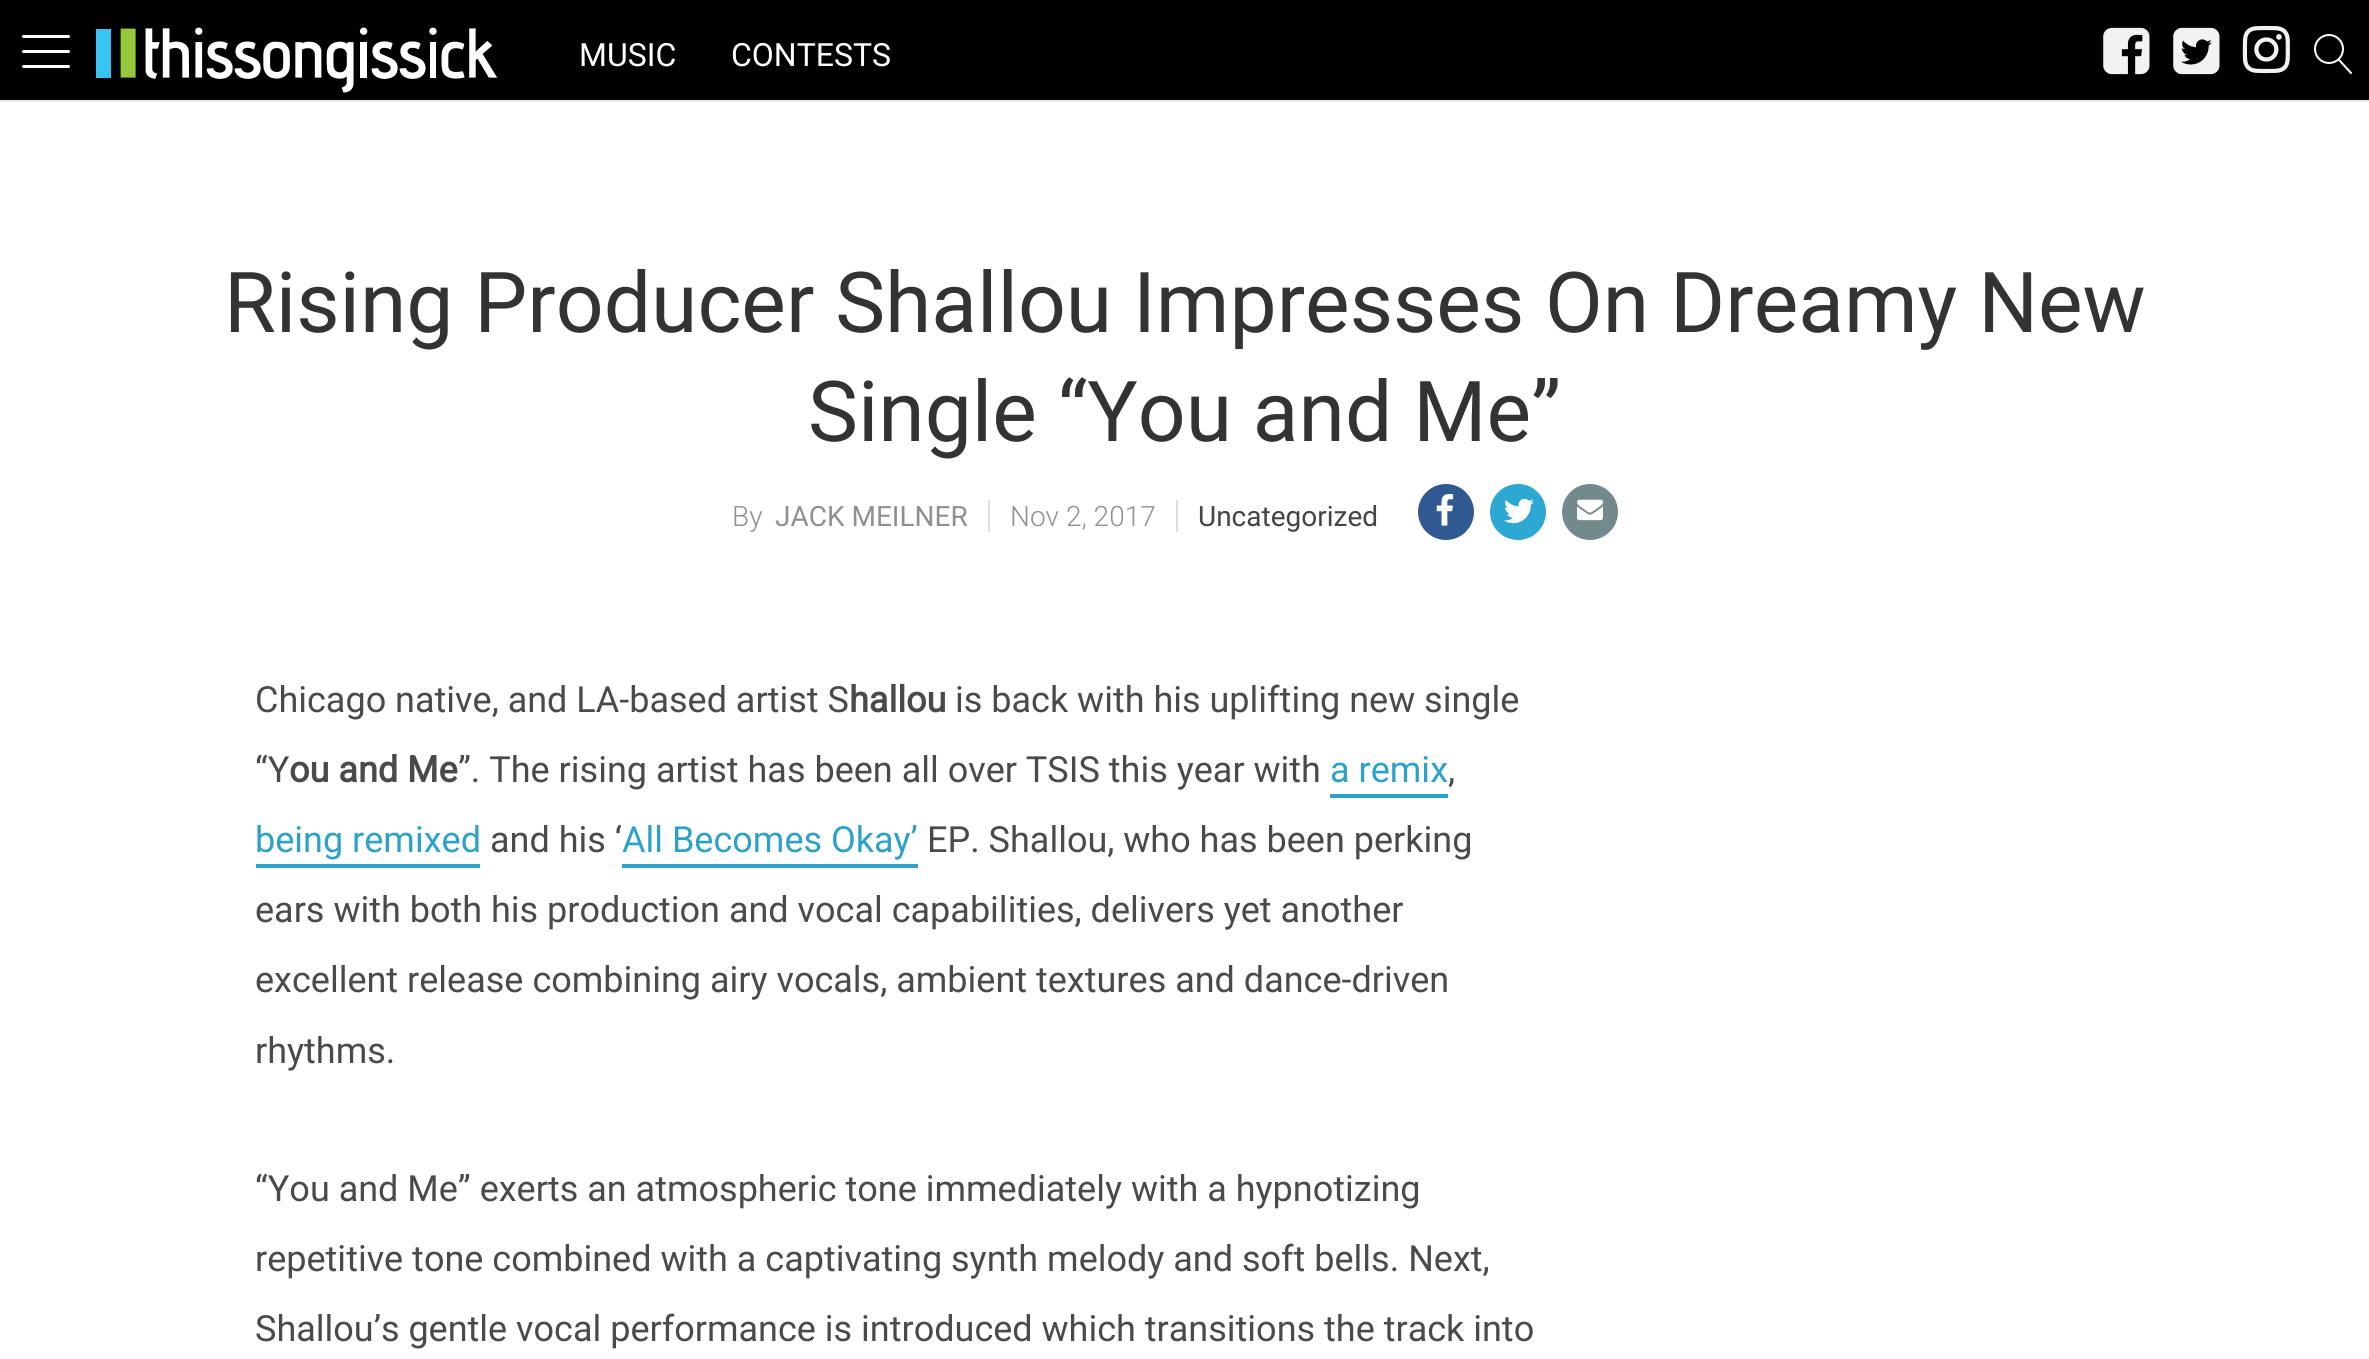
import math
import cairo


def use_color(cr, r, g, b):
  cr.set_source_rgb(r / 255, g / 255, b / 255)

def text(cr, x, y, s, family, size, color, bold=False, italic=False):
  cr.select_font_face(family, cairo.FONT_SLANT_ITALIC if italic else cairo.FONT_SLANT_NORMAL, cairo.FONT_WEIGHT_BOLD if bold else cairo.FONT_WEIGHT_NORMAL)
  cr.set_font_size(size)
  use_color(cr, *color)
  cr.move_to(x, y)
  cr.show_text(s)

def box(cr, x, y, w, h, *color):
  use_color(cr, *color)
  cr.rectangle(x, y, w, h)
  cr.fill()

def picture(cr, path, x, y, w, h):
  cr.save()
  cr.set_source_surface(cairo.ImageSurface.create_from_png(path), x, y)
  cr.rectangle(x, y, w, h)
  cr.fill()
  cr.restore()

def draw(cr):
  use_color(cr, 255, 255, 255)
  cr.paint()
  box(cr, 0, 0, 2369, 100, 0, 0, 0)
  box(cr, 0, 100, 2369, 2, 231, 231, 231)
  picture(cr, "img_01.png", 22, 35, 48, 33)
  picture(cr, "img_02.png", 96, 27, 401, 66)
  picture(cr, "img_03.png", 2103, 27, 47, 48)
  picture(cr, "img_04.png", 2173, 27, 47, 48)
  picture(cr, "img_05.png", 2242, 25, 48, 49)
  picture(cr, "img_06.png", 2314, 34, 38, 40)
  box(cr, 988, 500, 2, 32, 222, 222, 222)
  box(cr, 1176, 500, 2, 32, 222, 222, 222)
  use_color(cr, 48, 88, 145)
  cr.arc(1446, 512, 28, 0, 2 * math.pi)
  cr.fill()
  picture(cr, "img_07.png", 1436, 494, 18, 32)
  use_color(cr, 44, 168, 210)
  cr.arc(1518, 512, 28, 0, 2 * math.pi)
  cr.fill()
  picture(cr, "img_08.png", 1504, 498, 30, 26)
  use_color(cr, 115, 138, 141)
  cr.arc(1590, 512, 28, 0, 2 * math.pi)
  cr.fill()
  picture(cr, "img_09.png", 1577, 499, 26, 22)
  box(cr, 1330, 794, 118, 4, 45, 162, 200)
  box(cr, 256, 864, 224, 4, 45, 162, 200)
  box(cr, 622, 864, 296, 4, 45, 162, 200)
  text(cr, 579, 66, "MUSIC", "Roboto", 32, (255, 255, 255))
  text(cr, 731, 66, "CONTESTS", "Roboto", 32, (255, 255, 255))
  text(cr, 224, 332, "Rising Producer Shallou Impresses On Dreamy New", "Roboto", 84, (51, 51, 51))
  text(cr, 808, 441, "Single “You and Me”", "Roboto", 84, (51, 51, 51))
  text(cr, 732, 526, "By", "Roboto Light", 28, (144, 144, 144))
  text(cr, 775, 526, "JACK MEILNER", "Roboto", 28, (144, 144, 144))
  text(cr, 1010, 526, "Nov 2, 2017", "Roboto Light", 28, (144, 144, 144))
  text(cr, 1198, 526, "Uncategorized", "Roboto", 28, (68, 68, 68))
  text(cr, 255, 712, "Chicago native, and LA-based artist S", "Roboto", 36, (74, 74, 74))
  text(cr, 849, 712, "hallou", "Roboto", 36, (74, 74, 74), bold=True)
  text(cr, 955, 712, "is back with his uplifting new single", "Roboto", 36, (74, 74, 74))
  text(cr, 255, 782, "“Y", "Roboto", 36, (74, 74, 74))
  text(cr, 289, 782, "ou and Me", "Roboto", 36, (74, 74, 74), bold=True)
  text(cr, 458, 782, "”. The rising artist has been all over TSIS this year with", "Roboto", 36, (74, 74, 74))
  text(cr, 1330, 782, "a remix", "Roboto", 36, (45, 162, 200))
  text(cr, 1448, 782, ",", "Roboto", 36, (74, 74, 74))
  text(cr, 255, 852, "being remixed", "Roboto", 36, (45, 162, 200))
  text(cr, 490, 852, "and his ‘", "Roboto", 36, (74, 74, 74))
  text(cr, 622, 852, "All Becomes Okay’", "Roboto", 36, (45, 162, 200))
  text(cr, 927, 852, "EP. Shallou, who has been perking", "Roboto", 36, (74, 74, 74))
  text(cr, 255, 922, "ears with both his production and vocal capabilities, delivers yet another", "Roboto", 36, (74, 74, 74))
  text(cr, 255, 992, "excellent release combining airy vocals, ambient textures and dance-driven", "Roboto", 36, (74, 74, 74))
  text(cr, 255, 1063, "rhythms.", "Roboto", 36, (74, 74, 74))
  text(cr, 255, 1201, "“You and Me” exerts an atmospheric tone immediately with a hypnotizing", "Roboto", 36, (74, 74, 74))
  text(cr, 255, 1271, "repetitive tone combined with a captivating synth melody and soft bells. Next,", "Roboto", 36, (74, 74, 74))
  text(cr, 255, 1341, "Shallou’s gentle vocal performance is introduced which transitions the track into", "Roboto", 36, (74, 74, 74))


surface = cairo.ImageSurface(cairo.FORMAT_RGB24, 2369, 1359)
cr = cairo.Context(surface)
options = cairo.FontOptions()
options.set_hint_metrics(cairo.HINT_METRICS_OFF)
options.set_hint_style(cairo.HINT_STYLE_NONE)
cr.set_font_options(options)
cr.set_miter_limit(4)
draw(cr)
surface.write_to_png("out.png")
